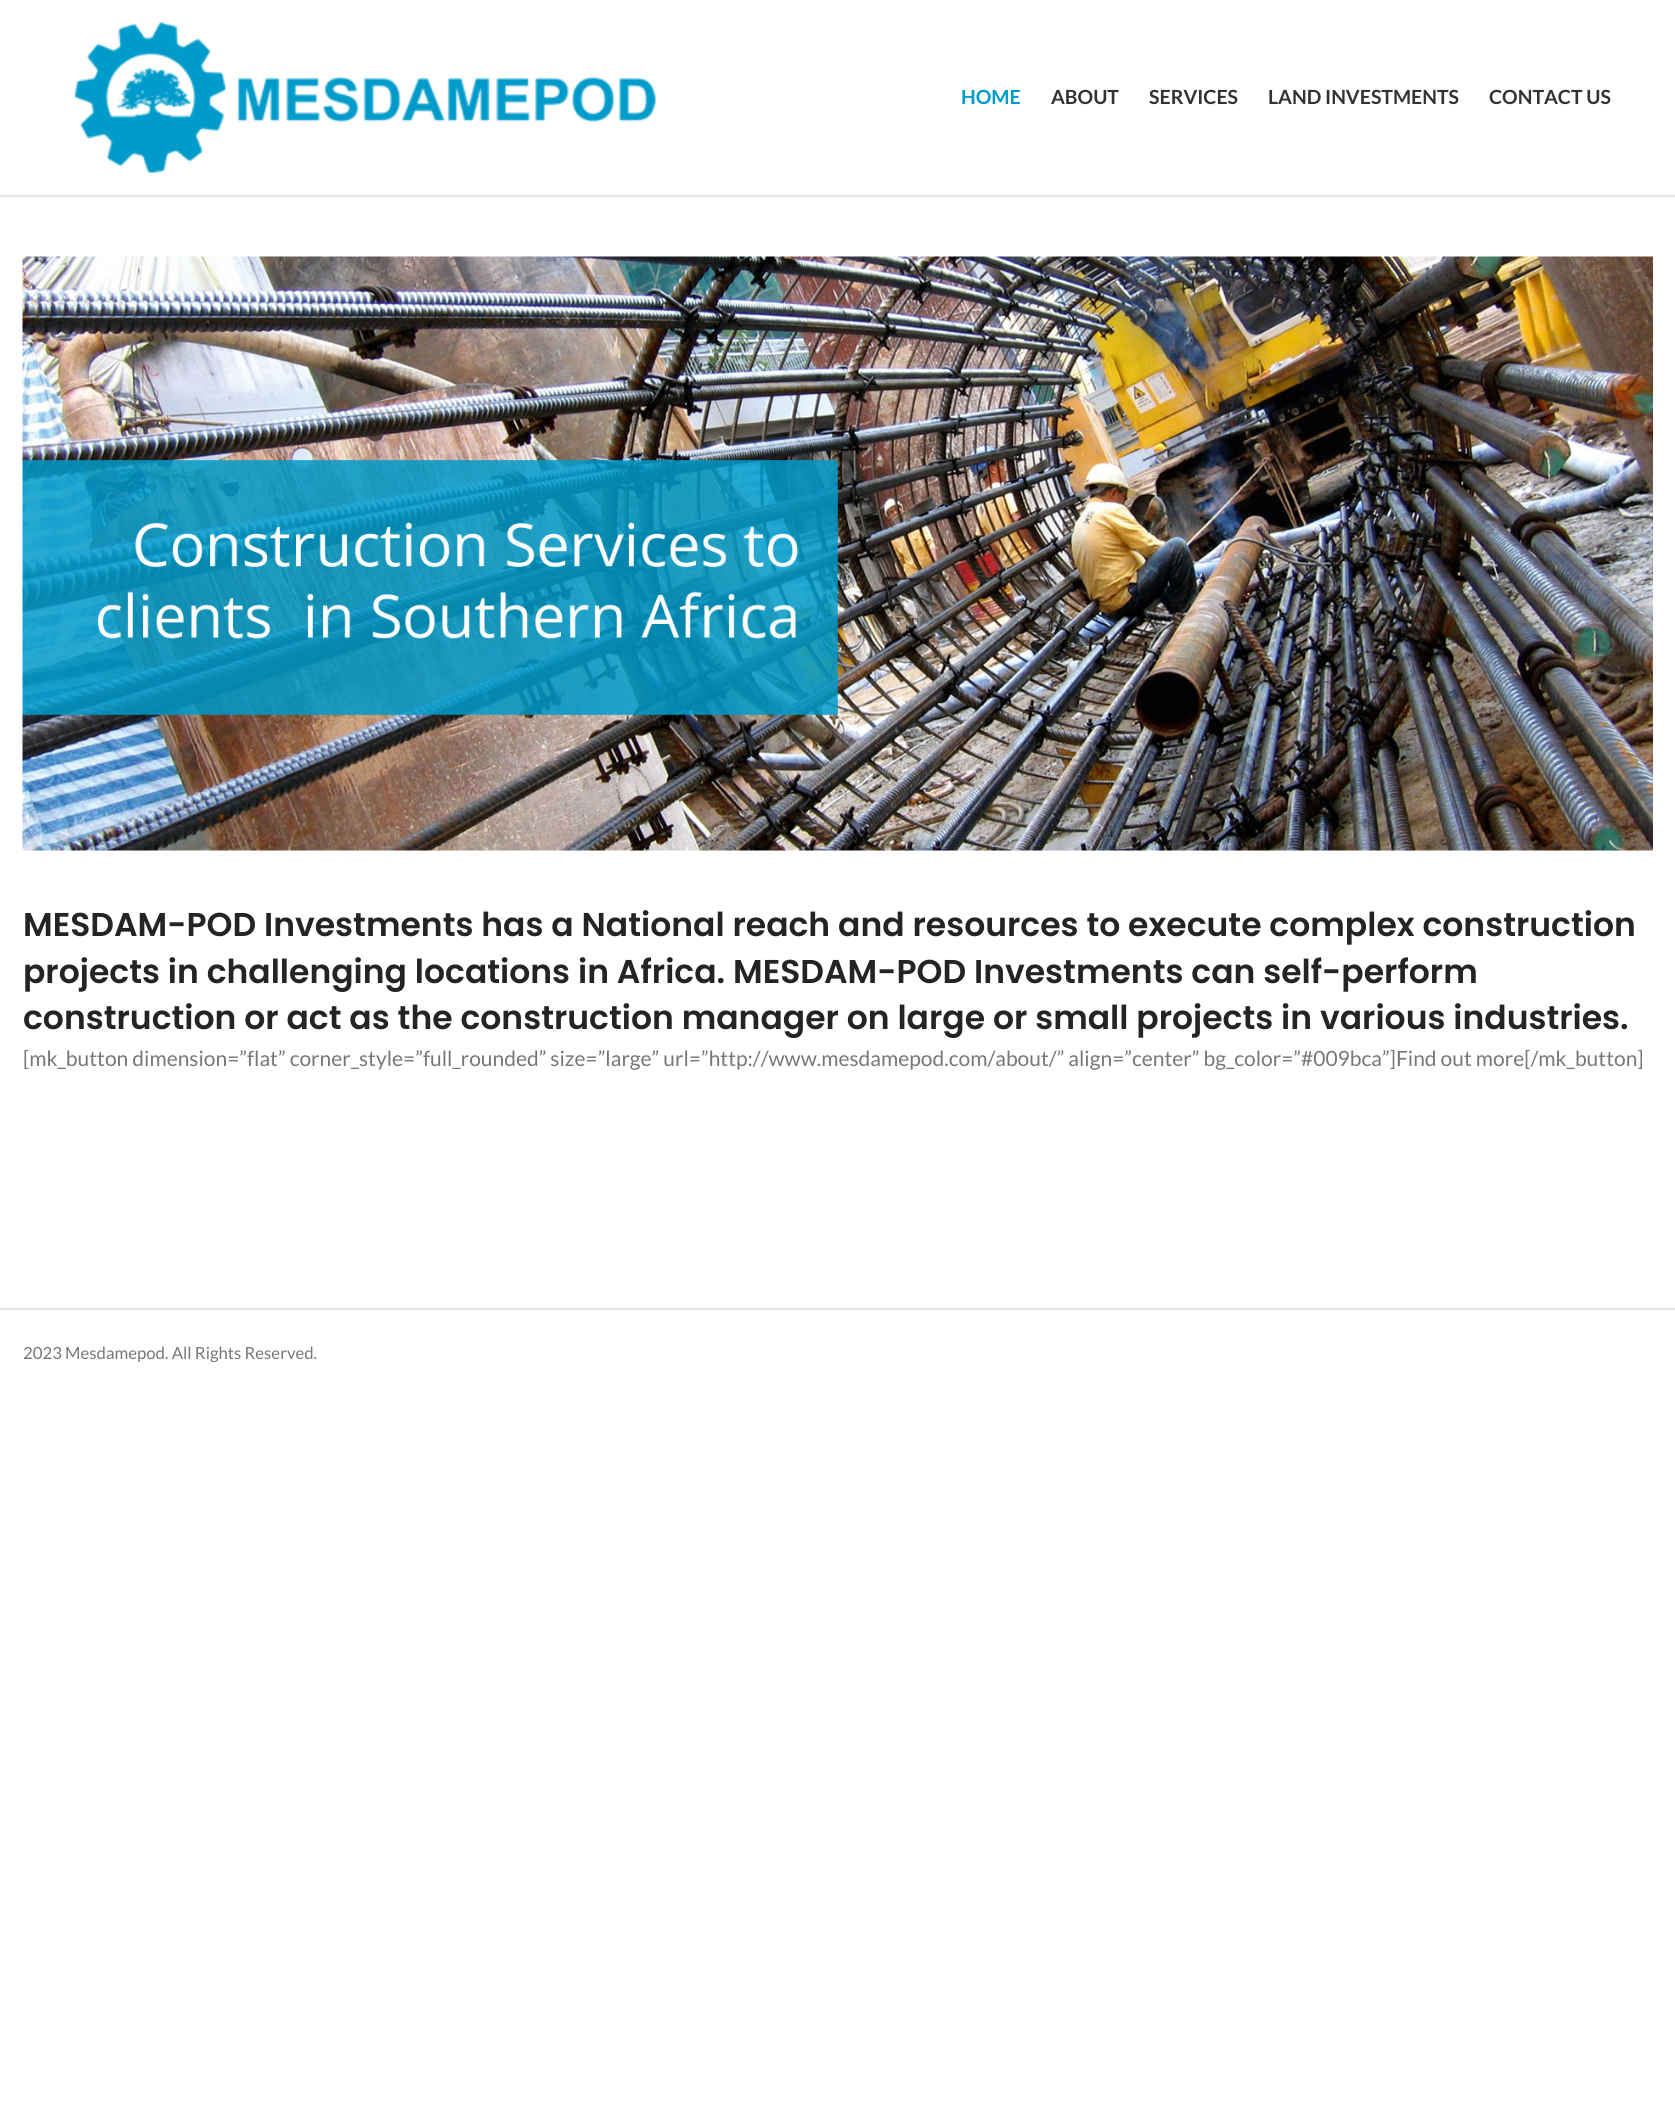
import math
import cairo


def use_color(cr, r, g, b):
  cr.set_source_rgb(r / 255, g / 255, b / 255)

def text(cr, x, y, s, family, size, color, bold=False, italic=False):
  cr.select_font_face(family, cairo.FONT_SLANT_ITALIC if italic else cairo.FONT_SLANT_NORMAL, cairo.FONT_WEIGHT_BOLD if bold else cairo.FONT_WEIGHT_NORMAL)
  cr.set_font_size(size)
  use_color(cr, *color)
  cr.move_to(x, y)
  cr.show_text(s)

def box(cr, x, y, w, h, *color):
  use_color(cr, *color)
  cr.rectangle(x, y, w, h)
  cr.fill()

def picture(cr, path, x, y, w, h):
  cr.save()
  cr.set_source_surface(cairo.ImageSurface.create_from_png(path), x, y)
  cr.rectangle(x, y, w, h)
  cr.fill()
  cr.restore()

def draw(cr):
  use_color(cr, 255, 255, 255)
  cr.paint()
  box(cr, 0, 195, 1675, 2, 230, 230, 230)
  picture(cr, "img_01.png", 74, 22, 582, 151)
  picture(cr, "img_02.png", 22, 256, 1631, 595)
  box(cr, 0, 1308, 1675, 2, 228, 228, 228)
  text(cr, 961, 104, "HOME", "Lato", 19.5, (0, 155, 202), bold=True)
  text(cr, 1051, 104, "ABOUT", "Lato", 19.5, (51, 51, 51), bold=True)
  text(cr, 1149, 104, "SERVICES", "Lato", 19.5, (51, 51, 51), bold=True)
  text(cr, 1268, 104, "LAND INVESTMENTS", "Lato", 19.5, (51, 51, 51), bold=True)
  text(cr, 1489, 104, "CONTACT US", "Lato", 19.5, (51, 51, 51), bold=True)
  text(cr, 23, 936, "MESDAM-POD Investments has a National reach and resources to execute complex construction", "Poppins SemiBold", 33, (36, 36, 36))
  text(cr, 23, 983, "projects in challenging locations in Africa. MESDAM-POD Investments can self-perform", "Poppins SemiBold", 33, (36, 36, 36))
  text(cr, 23, 1029, "construction or act as the construction manager on large or small projects in various industries.", "Poppins SemiBold", 33, (36, 36, 36))
  text(cr, 23, 1066, "[mk_button dimension=”flat” corner_style=”full_rounded” size=”large” url=”http://www.mesdamepod.com/about/” align=”center” bg_color=”#009bca”]Find out more[/mk_button]", "Lato", 21, (119, 119, 119))
  text(cr, 23, 1359, "2023 Mesdamepod. All Rights Reserved.", "Lato", 16.75, (119, 119, 119))


surface = cairo.ImageSurface(cairo.FORMAT_RGB24, 1675, 2102)
cr = cairo.Context(surface)
options = cairo.FontOptions()
options.set_hint_metrics(cairo.HINT_METRICS_OFF)
options.set_hint_style(cairo.HINT_STYLE_NONE)
cr.set_font_options(options)
cr.set_miter_limit(4)
draw(cr)
surface.write_to_png("out.png")
